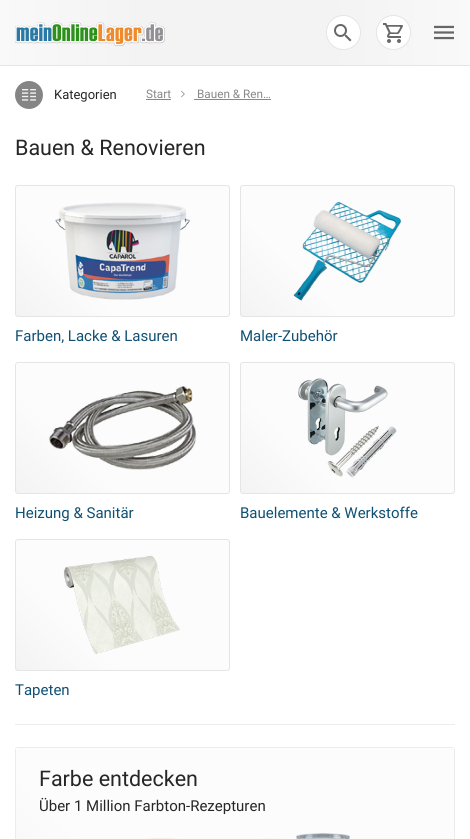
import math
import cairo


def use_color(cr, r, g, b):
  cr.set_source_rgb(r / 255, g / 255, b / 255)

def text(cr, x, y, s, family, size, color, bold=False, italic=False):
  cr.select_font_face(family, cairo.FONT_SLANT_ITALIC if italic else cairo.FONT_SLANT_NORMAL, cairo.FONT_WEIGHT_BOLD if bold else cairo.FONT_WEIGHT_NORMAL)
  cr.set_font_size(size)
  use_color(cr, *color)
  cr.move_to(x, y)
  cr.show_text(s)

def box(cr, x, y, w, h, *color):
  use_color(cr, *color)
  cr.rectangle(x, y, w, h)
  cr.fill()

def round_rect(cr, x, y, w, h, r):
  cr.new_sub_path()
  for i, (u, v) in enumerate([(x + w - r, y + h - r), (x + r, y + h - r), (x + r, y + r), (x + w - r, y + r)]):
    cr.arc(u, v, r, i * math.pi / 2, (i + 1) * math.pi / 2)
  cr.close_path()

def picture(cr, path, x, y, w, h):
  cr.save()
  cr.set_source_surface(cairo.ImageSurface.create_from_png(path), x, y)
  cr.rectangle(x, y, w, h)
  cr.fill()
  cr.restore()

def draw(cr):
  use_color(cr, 255, 255, 255)
  cr.paint()
  box(cr, 0, 65, 470, 1, 229, 229, 229)
  gradient = cairo.LinearGradient(0, 33, 470, 32)
  gradient.add_color_stop_rgba(0, 0.976, 0.976, 0.976, 1)
  gradient.add_color_stop_rgba(0.3, 0.953, 0.953, 0.953, 1)
  gradient.add_color_stop_rgba(0.7, 0.953, 0.953, 0.953, 1)
  gradient.add_color_stop_rgba(1, 0.976, 0.976, 0.976, 1)
  cr.set_source(gradient)
  cr.rectangle(0, 0, 470, 65)
  cr.fill()
  picture(cr, "img_01.png", 15, 22, 150, 24)
  use_color(cr, 255, 255, 255)
  cr.arc(343.5, 32.5, 17, 0, 2 * math.pi)
  cr.fill_preserve()
  use_color(cr, 229, 229, 229)
  cr.set_line_width(1)
  cr.stroke()
  picture(cr, "img_02.png", 334, 24, 18, 18)
  use_color(cr, 255, 255, 255)
  cr.arc(393.5, 32.5, 17, 0, 2 * math.pi)
  cr.fill_preserve()
  use_color(cr, 229, 229, 229)
  cr.stroke()
  picture(cr, "img_03.png", 383, 23, 20, 20)
  picture(cr, "img_04.png", 434, 25, 20, 15)
  use_color(cr, 133, 133, 133)
  cr.arc(29, 95, 14, 0, 2 * math.pi)
  cr.fill()
  picture(cr, "img_05.png", 22, 89, 14, 12)
  box(cr, 146, 99, 25, 1, 136, 136, 136)
  picture(cr, "img_06.png", 181, 90, 4, 8)
  box(cr, 194, 99, 77, 1, 136, 136, 136)
  gradient = cairo.LinearGradient(37, 337, 208, 165)
  gradient.add_color_stop_rgba(0, 0.953, 0.953, 0.953, 1)
  gradient.add_color_stop_rgba(0.3, 0.988, 0.988, 0.988, 1)
  cr.set_source(gradient)
  cr.rectangle(16, 186, 213, 130)
  cr.fill()
  round_rect(cr, 15.5, 185.5, 214, 131, 2.5)
  use_color(cr, 229, 229, 229)
  cr.stroke()
  picture(cr, "img_07.png", 55, 202, 135, 98)
  gradient = cairo.LinearGradient(262, 337, 433, 165)
  gradient.add_color_stop_rgba(0, 0.953, 0.953, 0.953, 1)
  gradient.add_color_stop_rgba(0.3, 0.988, 0.988, 0.988, 1)
  cr.set_source(gradient)
  cr.rectangle(241, 186, 213, 130)
  cr.fill()
  round_rect(cr, 240.5, 185.5, 214, 131, 2.5)
  use_color(cr, 229, 229, 229)
  cr.stroke()
  picture(cr, "img_08.png", 293, 202, 109, 99)
  gradient = cairo.LinearGradient(37, 514, 208, 342)
  gradient.add_color_stop_rgba(0, 0.953, 0.953, 0.953, 1)
  gradient.add_color_stop_rgba(0.3, 0.988, 0.988, 0.988, 1)
  cr.set_source(gradient)
  cr.rectangle(16, 363, 213, 130)
  cr.fill()
  round_rect(cr, 15.5, 362.5, 214, 131, 2.5)
  use_color(cr, 229, 229, 229)
  cr.stroke()
  picture(cr, "img_09.png", 49, 386, 148, 84)
  gradient = cairo.LinearGradient(262, 514, 433, 342)
  gradient.add_color_stop_rgba(0, 0.953, 0.953, 0.953, 1)
  gradient.add_color_stop_rgba(0.3, 0.988, 0.988, 0.988, 1)
  cr.set_source(gradient)
  cr.rectangle(241, 363, 213, 130)
  cr.fill()
  round_rect(cr, 240.5, 362.5, 214, 131, 2.5)
  use_color(cr, 229, 229, 229)
  cr.stroke()
  picture(cr, "img_10.png", 298, 378, 99, 100)
  gradient = cairo.LinearGradient(37, 691, 208, 519)
  gradient.add_color_stop_rgba(0, 0.953, 0.953, 0.953, 1)
  gradient.add_color_stop_rgba(0.3, 0.988, 0.988, 0.988, 1)
  cr.set_source(gradient)
  cr.rectangle(16, 540, 213, 130)
  cr.fill()
  round_rect(cr, 15.5, 539.5, 214, 131, 2.5)
  use_color(cr, 229, 229, 229)
  cr.stroke()
  picture(cr, "img_11.png", 63, 555, 117, 99)
  box(cr, 15, 724, 440, 1, 236, 236, 236)
  round_rect(cr, 15.5, 747.5, 439, 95, 2.5)
  cr.stroke()
  gradient = cairo.LinearGradient(70, 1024, 400, 694)
  gradient.add_color_stop_rgba(0, 0.953, 0.953, 0.953, 1)
  gradient.add_color_stop_rgba(0.3, 0.988, 0.988, 0.988, 1)
  cr.set_source(gradient)
  cr.rectangle(16, 748, 438, 91)
  cr.fill()
  picture(cr, "img_12.png", 146, 833, 205, 6)
  text(cr, 54, 99, "Kategorien", "Roboto", 13, (38, 38, 38))
  text(cr, 146, 98, "Start", "Roboto", 11.75, (136, 136, 136))
  text(cr, 197, 98, "Bauen & Ren…", "Roboto", 11.75, (136, 136, 136))
  text(cr, 15, 155, "Bauen & Renovieren", "Roboto", 21.5, (38, 38, 38))
  text(cr, 15, 341, "Farben, Lacke & Lasuren", "Roboto", 15, (16, 80, 116))
  text(cr, 240, 341, "Maler-Zubehör", "Roboto", 15, (16, 80, 116))
  text(cr, 15, 518, "Heizung & Sanitär", "Roboto", 15, (16, 80, 116))
  text(cr, 240, 518, "Bauelemente & Werkstoffe", "Roboto", 15, (16, 80, 116))
  text(cr, 15, 695, "Tapeten", "Roboto", 15, (16, 80, 116))
  text(cr, 39, 786, "Farbe entdecken", "Roboto", 21.5, (38, 38, 38))
  text(cr, 39, 811, "Über 1 Million Farbton-Rezepturen", "Roboto", 15, (38, 38, 38))


surface = cairo.ImageSurface(cairo.FORMAT_RGB24, 470, 839)
cr = cairo.Context(surface)
options = cairo.FontOptions()
options.set_hint_metrics(cairo.HINT_METRICS_OFF)
options.set_hint_style(cairo.HINT_STYLE_NONE)
cr.set_font_options(options)
cr.set_miter_limit(4)
draw(cr)
surface.write_to_png("out.png")
